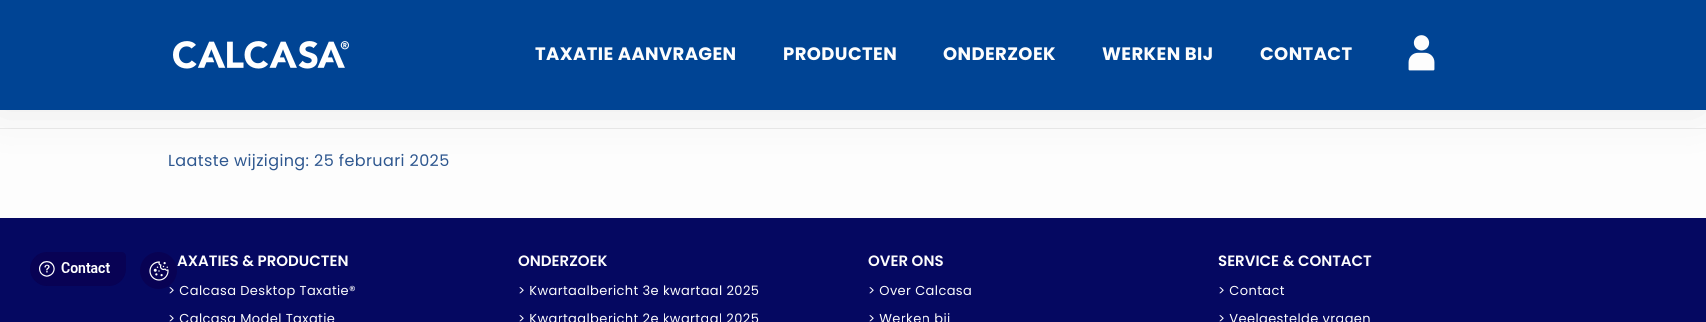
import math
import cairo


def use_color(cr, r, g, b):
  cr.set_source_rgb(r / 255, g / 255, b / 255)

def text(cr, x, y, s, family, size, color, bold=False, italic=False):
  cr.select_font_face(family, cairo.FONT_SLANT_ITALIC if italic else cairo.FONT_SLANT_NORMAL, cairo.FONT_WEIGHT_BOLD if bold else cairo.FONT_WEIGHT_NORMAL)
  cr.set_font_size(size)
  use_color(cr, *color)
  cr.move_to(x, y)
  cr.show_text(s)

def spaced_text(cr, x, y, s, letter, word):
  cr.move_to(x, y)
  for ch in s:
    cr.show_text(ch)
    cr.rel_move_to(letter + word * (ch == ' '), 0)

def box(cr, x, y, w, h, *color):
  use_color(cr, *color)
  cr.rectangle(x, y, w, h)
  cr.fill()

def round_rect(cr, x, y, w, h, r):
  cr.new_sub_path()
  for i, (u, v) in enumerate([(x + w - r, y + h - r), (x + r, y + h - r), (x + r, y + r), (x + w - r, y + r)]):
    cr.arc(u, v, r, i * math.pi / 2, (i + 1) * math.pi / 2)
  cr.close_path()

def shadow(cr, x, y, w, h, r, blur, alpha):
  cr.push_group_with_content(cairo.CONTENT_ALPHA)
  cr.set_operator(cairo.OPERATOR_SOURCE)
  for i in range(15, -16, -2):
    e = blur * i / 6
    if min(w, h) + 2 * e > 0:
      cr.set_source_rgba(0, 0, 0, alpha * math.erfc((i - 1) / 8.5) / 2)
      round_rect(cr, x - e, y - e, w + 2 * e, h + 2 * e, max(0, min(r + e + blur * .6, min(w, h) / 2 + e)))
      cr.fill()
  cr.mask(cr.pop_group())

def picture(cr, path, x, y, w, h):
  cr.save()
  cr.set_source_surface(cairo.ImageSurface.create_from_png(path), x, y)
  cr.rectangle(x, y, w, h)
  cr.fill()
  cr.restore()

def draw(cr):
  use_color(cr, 253, 253, 253)
  cr.paint()
  box(cr, 0, 128, 1706, 1, 235, 235, 235)
  use_color(cr, 0, 0, 0)
  shadow(cr, -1, 2, 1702, 106, 0, 25, 0.09)
  box(cr, 0, 0, 1706, 110, 0, 68, 148)
  picture(cr, "img_01.png", 173, 41, 176, 28)
  picture(cr, "img_02.png", 1408, 35, 27, 36)
  box(cr, 0, 218, 1706, 104, 5, 8, 97)
  picture(cr, "img_03.png", 30, 252, 96, 34)
  cr.select_font_face("Poppins", cairo.FONT_SLANT_NORMAL, cairo.FONT_WEIGHT_BOLD)
  cr.set_font_size(18)
  use_color(cr, 253, 253, 253)
  spaced_text(cr, 535, 60, "TAXATIE AANVRAGEN", 0.4, 0)
  spaced_text(cr, 783, 60, "PRODUCTEN", 0.4, 0)
  spaced_text(cr, 943, 60, "ONDERZOEK", 0.4, 0)
  spaced_text(cr, 1102, 60, "WERKEN BIJ", 0.4, 0)
  spaced_text(cr, 1260, 60, "CONTACT", 0.4, 0)
  cr.select_font_face("Poppins")
  cr.set_font_size(16)
  use_color(cr, 46, 87, 143)
  spaced_text(cr, 168, 166, "Laatste wijziging: 25 februari 2025", 0.4, 0)
  text(cr, 177, 266, "AXATIES & PRODUCTEN", "Poppins SemiBold", 15, (253, 253, 253))
  cr.select_font_face("Poppins")
  cr.set_font_size(13)
  spaced_text(cr, 168, 295, "> Calcasa Desktop Taxatie®", 0.4, 0)
  use_color(cr, 8, 2, 84)
  cr.new_path()
  cr.arc(158.5, 270.5, 18.5, 0, 2 * math.pi)
  cr.fill()
  picture(cr, "img_04.png", 149, 261, 20, 20)
  use_color(cr, 253, 253, 253)
  spaced_text(cr, 168, 323, "> Calcasa Model Taxatie", 0.4, 0)
  text(cr, 518, 266, "ONDERZOEK", "Poppins SemiBold", 15, (253, 253, 253))
  cr.select_font_face("Poppins")
  cr.set_font_size(13)
  spaced_text(cr, 518, 295, "> Kwartaalbericht 3e kwartaal 2025", 0.4, 0)
  spaced_text(cr, 518, 323, "> Kwartaalbericht 2e kwartaal 2025", 0.4, 0)
  text(cr, 868, 266, "OVER ONS", "Poppins SemiBold", 15, (253, 253, 253))
  cr.select_font_face("Poppins")
  cr.set_font_size(13)
  spaced_text(cr, 868, 295, "> Over Calcasa", 0.4, 0)
  spaced_text(cr, 868, 323, "> Werken bij", 0.4, 0)
  text(cr, 1218, 266, "SERVICE & CONTACT", "Poppins SemiBold", 15, (253, 253, 253))
  cr.select_font_face("Poppins")
  cr.set_font_size(13)
  spaced_text(cr, 1218, 295, "> Contact", 0.4, 0)
  spaced_text(cr, 1218, 323, "> Veelgestelde vragen", 0.4, 0)


surface = cairo.ImageSurface(cairo.FORMAT_RGB24, 1706, 322)
cr = cairo.Context(surface)
options = cairo.FontOptions()
options.set_hint_metrics(cairo.HINT_METRICS_OFF)
options.set_hint_style(cairo.HINT_STYLE_NONE)
cr.set_font_options(options)
cr.set_miter_limit(4)
draw(cr)
surface.write_to_png("out.png")
